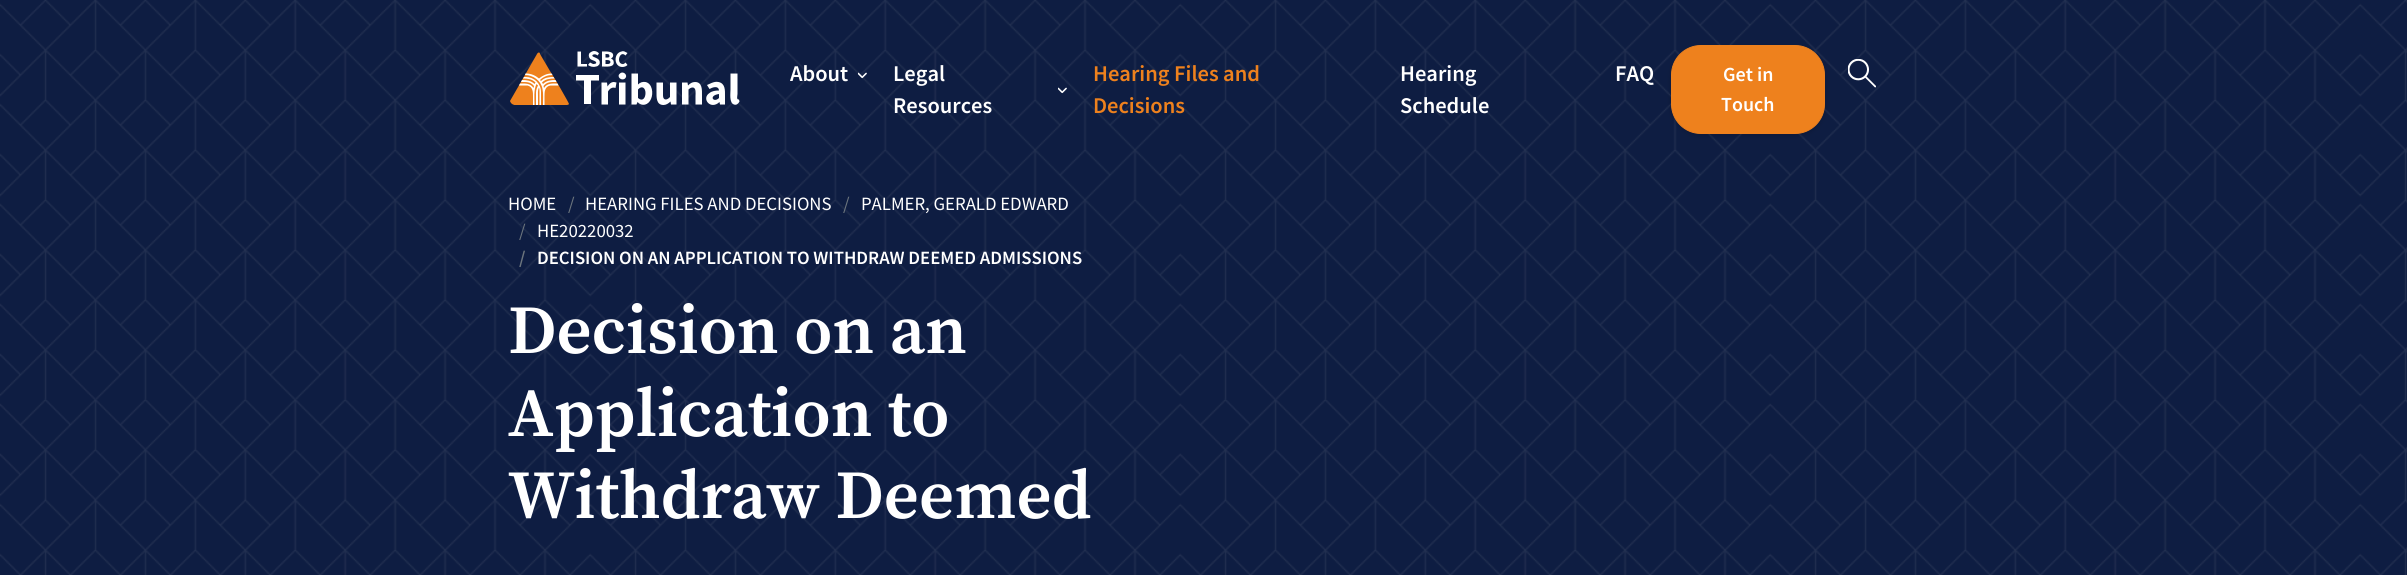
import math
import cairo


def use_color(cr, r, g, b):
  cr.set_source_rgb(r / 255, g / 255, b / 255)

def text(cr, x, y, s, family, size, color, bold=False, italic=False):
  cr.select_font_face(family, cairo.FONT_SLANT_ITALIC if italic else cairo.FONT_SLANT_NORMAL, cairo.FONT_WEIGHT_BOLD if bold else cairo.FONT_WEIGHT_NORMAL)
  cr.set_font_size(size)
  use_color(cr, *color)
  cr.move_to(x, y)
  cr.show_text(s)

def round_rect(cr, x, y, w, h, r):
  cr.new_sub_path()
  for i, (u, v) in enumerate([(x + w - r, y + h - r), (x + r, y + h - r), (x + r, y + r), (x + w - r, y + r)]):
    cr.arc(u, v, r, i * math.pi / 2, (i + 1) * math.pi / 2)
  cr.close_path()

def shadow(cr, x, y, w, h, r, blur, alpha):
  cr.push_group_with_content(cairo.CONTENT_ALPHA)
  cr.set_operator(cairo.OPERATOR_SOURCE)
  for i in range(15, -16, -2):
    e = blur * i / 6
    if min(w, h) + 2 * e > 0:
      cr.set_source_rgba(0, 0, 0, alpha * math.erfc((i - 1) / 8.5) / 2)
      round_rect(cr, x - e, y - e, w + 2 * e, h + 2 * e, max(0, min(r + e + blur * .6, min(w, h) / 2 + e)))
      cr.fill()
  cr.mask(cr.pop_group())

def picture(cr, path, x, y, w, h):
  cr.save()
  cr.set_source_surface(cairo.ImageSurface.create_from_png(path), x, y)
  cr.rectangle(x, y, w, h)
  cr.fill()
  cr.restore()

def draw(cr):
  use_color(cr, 255, 255, 255)
  cr.paint()
  picture(cr, "img_01.png", 0, 0, 2407, 575)
  use_color(cr, 255, 255, 255)
  cr.new_path()
  cr.move_to(581, 51.5)
  cr.line_to(577.5, 51.5)
  cr.line_to(577.5, 66.5)
  cr.line_to(587, 66.5)
  cr.line_to(587, 64)
  cr.line_to(581, 64)
  cr.close_path()
  cr.move_to(594, 51)
  cr.curve_to(592.5, 51, 591, 52, 589.5, 53)
  cr.curve_to(589, 54, 588.5, 55, 589, 56.5)
  cr.curve_to(589.5, 60.5, 594.5, 60, 596, 62)
  cr.curve_to(597, 64, 594, 64, 593, 64)
  cr.line_to(590, 62.5)
  cr.line_to(588, 65)
  cr.curve_to(590, 66.5, 593, 67.5, 596, 66.5)
  cr.curve_to(597.5, 66.5, 598.5, 65.5, 599.5, 64)
  cr.curve_to(601.5, 57, 591, 58, 592.5, 55)
  cr.line_to(593.5, 54.5)
  cr.curve_to(595, 54, 596.5, 54.5, 597.5, 55.5)
  cr.line_to(599, 53.5)
  cr.curve_to(598, 52, 596, 51, 594, 51)
  cr.close_path()
  cr.fill()
  cr.set_fill_rule(cairo.FILL_RULE_EVEN_ODD)
  cr.new_path()
  cr.move_to(602, 51.5)
  cr.curve_to(605, 51.5, 614.5, 50.5, 613, 56.5)
  cr.curve_to(612.5, 57.5, 612, 58, 611, 58.5)
  cr.curve_to(612, 59, 613.5, 60, 613.5, 61)
  cr.curve_to(615.5, 68, 605.5, 66.5, 602, 66.5)
  cr.close_path()
  cr.move_to(609, 54.5)
  cr.curve_to(608, 54, 606.5, 54, 605.5, 54)
  cr.line_to(605.5, 57.5)
  cr.curve_to(607, 57.5, 609.5, 58, 609.5, 56)
  cr.close_path()
  cr.move_to(609.5, 60.5)
  cr.curve_to(608.5, 60, 607, 60, 605.5, 60)
  cr.line_to(605.5, 64)
  cr.curve_to(607.5, 64, 610, 64.5, 610.5, 62)
  cr.curve_to(610.5, 61.5, 610, 61, 609.5, 60.5)
  cr.close_path()
  cr.fill()
  cr.new_path()
  cr.move_to(620, 73.5)
  cr.curve_to(623, 70.5, 628.5, 75, 625, 78.5)
  cr.curve_to(621.5, 81.5, 616, 76.5, 620, 73.5)
  cr.close_path()
  cr.move_to(619, 82.5)
  cr.line_to(625.5, 82.5)
  cr.line_to(625.5, 104.5)
  cr.line_to(619, 104.5)
  cr.close_path()
  cr.move_to(631.5, 73.5)
  cr.line_to(631.5, 104.5)
  cr.line_to(636.5, 104.5)
  cr.line_to(637.5, 102)
  cr.curve_to(642, 107, 648.5, 105, 651, 99)
  cr.curve_to(653.5, 93.5, 652.5, 83.5, 645.5, 82)
  cr.curve_to(642.5, 81.5, 640, 82.5, 638, 84.5)
  cr.line_to(638, 73.5)
  cr.close_path()
  cr.move_to(645.5, 93)
  cr.curve_to(645.5, 88, 642, 85, 638, 89.5)
  cr.line_to(638, 98)
  cr.curve_to(642.5, 102, 645.5, 98, 645.5, 93)
  cr.close_path()
  cr.fill()
  cr.set_fill_rule(cairo.FILL_RULE_WINDING)
  cr.new_path()
  cr.move_to(625.5, 52)
  cr.curve_to(624, 51, 622.5, 51, 621.5, 51.5)
  cr.curve_to(613.5, 53, 613.5, 66.5, 622, 67)
  cr.curve_to(624, 67, 626, 66.5, 627.5, 65)
  cr.line_to(625.5, 62.5)
  cr.curve_to(624.5, 63.5, 623.5, 64.5, 622, 64)
  cr.curve_to(616, 62.5, 620, 50, 625.5, 55.5)
  cr.line_to(627.5, 53)
  cr.close_path()
  cr.move_to(599, 75)
  cr.line_to(576, 75)
  cr.line_to(576, 80.5)
  cr.line_to(584, 80.5)
  cr.line_to(584, 104)
  cr.line_to(591, 104)
  cr.line_to(591, 80.5)
  cr.line_to(599, 80.5)
  cr.close_path()
  cr.fill()
  cr.save()
  cr.rectangle(509, 51, 231, 54)
  cr.clip()
  use_color(cr, 238, 129, 29)
  cr.new_path()
  cr.move_to(540, 54)
  cr.curve_to(540, 52, 538, 52, 537, 54)
  cr.line_to(510, 101)
  cr.curve_to(512, 107, 519, 105, 524, 105)
  cr.line_to(558, 105)
  cr.curve_to(560, 105, 568, 106, 569, 104)
  cr.curve_to(569, 103, 554, 77, 550, 71)
  cr.close_path()
  cr.fill()
  cr.restore()
  cr.set_fill_rule(cairo.FILL_RULE_EVEN_ODD)
  cr.new_path()
  cr.move_to(524, 77)
  cr.line_to(523, 78.5)
  cr.curve_to(527.5, 78.5, 532, 79, 535.5, 82.5)
  cr.line_to(534.5, 84)
  cr.curve_to(531, 80.5, 526.5, 80, 522, 80)
  cr.line_to(521, 82)
  cr.curve_to(525.5, 82, 530.5, 81.5, 534, 86)
  cr.line_to(533.5, 88)
  cr.curve_to(530.5, 83, 525, 83.5, 520, 83.5)
  cr.line_to(519, 85.5)
  cr.line_to(527.5, 85.5)
  cr.curve_to(533, 87, 533, 92, 533, 96.5)
  cr.line_to(533, 105)
  cr.line_to(534.5, 105)
  cr.curve_to(534.5, 98.5, 533.5, 90, 536.5, 84)
  cr.line_to(538, 85.5)
  cr.curve_to(537, 87.5, 536, 90, 536, 92.5)
  cr.line_to(536, 105)
  cr.line_to(538, 105)
  cr.line_to(538, 96.5)
  cr.curve_to(538, 93.5, 537.5, 90.5, 539, 87.5)
  cr.curve_to(539.5, 89, 539.5, 90.5, 539.5, 92.5)
  cr.line_to(539.5, 105)
  cr.line_to(541, 105)
  cr.line_to(541, 92)
  cr.curve_to(541, 83.5, 534, 77, 526, 77)
  cr.close_path()
  cr.move_to(525.5, 73.5)
  cr.line_to(525, 75)
  cr.curve_to(533, 75, 541, 80.5, 542.5, 89)
  cr.curve_to(543.5, 93.5, 543, 100, 543, 105)
  cr.line_to(544.5, 105)
  cr.line_to(544.5, 96.5)
  cr.curve_to(544.5, 92, 544.5, 86.5, 550.5, 85.5)
  cr.line_to(558.5, 85.5)
  cr.line_to(557.5, 83.5)
  cr.curve_to(552.5, 83.5, 547, 83, 544, 88)
  cr.line_to(543.5, 86)
  cr.curve_to(547, 81.5, 551.5, 82, 556.5, 82)
  cr.line_to(555.5, 80)
  cr.curve_to(551, 80, 546.5, 80.5, 543, 84)
  cr.line_to(542, 82.5)
  cr.curve_to(545.5, 79, 550, 78.5, 554.5, 78.5)
  cr.line_to(553.5, 77)
  cr.curve_to(549, 77, 544.5, 77.5, 541, 81)
  cr.line_to(540, 80)
  cr.curve_to(543.5, 76.5, 548, 75, 552.5, 75)
  cr.line_to(551.5, 73.5)
  cr.curve_to(547, 73.5, 542.5, 75.5, 539, 78.5)
  cr.curve_to(535.5, 75.5, 531, 73.5, 526, 73.5)
  cr.close_path()
  cr.fill()
  cr.set_fill_rule(cairo.FILL_RULE_WINDING)
  cr.new_path()
  cr.move_to(614, 82)
  cr.curve_to(611, 82, 609, 84, 607.5, 86.5)
  cr.line_to(607, 82.5)
  cr.line_to(601.5, 82.5)
  cr.line_to(601.5, 104.5)
  cr.line_to(608, 104.5)
  cr.line_to(608, 91.5)
  cr.line_to(609, 90)
  cr.curve_to(610.5, 88, 613, 87, 615.5, 88)
  cr.line_to(616.5, 82.5)
  cr.close_path()
  cr.fill()
  cr.new_path()
  cr.move_to(663, 82.5)
  cr.line_to(656.5, 82.5)
  cr.line_to(656.5, 91.5)
  cr.curve_to(656.5, 97, 656, 105, 663.5, 105)
  cr.curve_to(666, 105, 668.5, 103.5, 670.5, 101.5)
  cr.line_to(671, 104.5)
  cr.line_to(676.5, 104.5)
  cr.line_to(676.5, 82.5)
  cr.line_to(670, 82.5)
  cr.line_to(670, 97)
  cr.curve_to(667, 100.5, 663, 100.5, 663, 95.5)
  cr.close_path()
  cr.move_to(695, 82)
  cr.curve_to(692, 82, 690, 83.5, 688, 85.5)
  cr.line_to(687.5, 82.5)
  cr.line_to(682, 82.5)
  cr.line_to(682, 104.5)
  cr.line_to(688.5, 104.5)
  cr.line_to(688.5, 89.5)
  cr.curve_to(689.5, 88.5, 691, 87.5, 692.5, 87.5)
  cr.curve_to(696.5, 87.5, 695.5, 93.5, 695.5, 96)
  cr.line_to(695.5, 104.5)
  cr.line_to(702, 104.5)
  cr.line_to(702, 95.5)
  cr.curve_to(702, 90, 702.5, 82, 695, 82)
  cr.close_path()
  cr.fill()
  cr.set_fill_rule(cairo.FILL_RULE_EVEN_ODD)
  cr.new_path()
  cr.move_to(711.5, 83)
  cr.line_to(707, 85)
  cr.line_to(709.5, 89)
  cr.curve_to(712, 87.5, 718.5, 85, 719, 90.5)
  cr.curve_to(715.5, 90.5, 712, 91, 709.5, 93)
  cr.curve_to(701, 98.5, 710.5, 110.5, 719.5, 102)
  cr.line_to(720, 104.5)
  cr.line_to(725, 104.5)
  cr.line_to(725, 96)
  cr.curve_to(725, 90.5, 725.5, 83.5, 718.5, 82)
  cr.curve_to(716, 81.5, 714, 82, 711.5, 83)
  cr.close_path()
  cr.move_to(719, 98)
  cr.line_to(719, 94)
  cr.curve_to(708, 95.5, 713.5, 103.5, 719, 98)
  cr.close_path()
  cr.fill()
  cr.set_fill_rule(cairo.FILL_RULE_WINDING)
  cr.new_path()
  cr.move_to(737.5, 73.5)
  cr.line_to(737.5, 94)
  cr.curve_to(737.5, 95.5, 736, 100, 739, 99.5)
  cr.line_to(739.5, 101.5)
  cr.curve_to(738.5, 103.5, 736.5, 105.5, 734, 104.5)
  cr.curve_to(729, 103, 730.5, 93, 730.5, 89.5)
  cr.line_to(730.5, 73.5)
  cr.close_path()
  cr.fill()
  picture(cr, "img_02.png", 858, 72, 9, 7)
  picture(cr, "img_03.png", 1058, 87, 9, 7)
  use_color(cr, 0, 0, 0)
  shadow(cr, 1671, 48, 154, 88, 30, 2.5, 0.15)
  use_color(cr, 238, 129, 29)
  round_rect(cr, 1671.5, 45.5, 153, 88, 29.5)
  cr.fill_preserve()
  cr.set_line_width(1)
  cr.stroke()
  picture(cr, "img_04.png", 1848, 59, 28, 29)
  text(cr, 790, 81, "About", "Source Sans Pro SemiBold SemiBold", 22.5, (255, 255, 255))
  text(cr, 893, 81, "Legal", "Source Sans Pro SemiBold SemiBold", 22.5, (255, 255, 255))
  text(cr, 893, 113, "Resources", "Source Sans Pro SemiBold SemiBold", 22.5, (255, 255, 255))
  text(cr, 1093, 81, "Hearing Files and", "Source Sans Pro SemiBold SemiBold", 22.5, (238, 129, 29))
  text(cr, 1093, 113, "Decisions", "Source Sans Pro SemiBold SemiBold", 22.5, (238, 129, 29))
  text(cr, 1400, 81, "Hearing", "Source Sans Pro SemiBold SemiBold", 22.5, (255, 255, 255))
  text(cr, 1400, 113, "Schedule", "Source Sans Pro SemiBold SemiBold", 22.5, (255, 255, 255))
  text(cr, 1615, 81, "FAQ", "Source Sans Pro SemiBold SemiBold", 22.5, (255, 255, 255))
  text(cr, 1723, 81, "Get in", "Source Sans Pro SemiBold SemiBold", 20, (255, 255, 255))
  text(cr, 1721, 111, "Touch", "Source Sans Pro SemiBold SemiBold", 20, (255, 255, 255))
  text(cr, 508, 210, "HOME", "Source Sans Pro", 18.75, (255, 255, 255))
  text(cr, 568, 210, "/", "Source Sans Pro", 18.75, (108, 117, 125))
  text(cr, 585, 210, "HEARING FILES AND DECISIONS", "Source Sans Pro", 18.75, (255, 255, 255))
  text(cr, 843, 210, "/", "Source Sans Pro", 18.75, (108, 117, 125))
  text(cr, 861, 210, "PALMER, GERALD EDWARD", "Source Sans Pro", 18.75, (255, 255, 255))
  text(cr, 519, 237, "/", "Source Sans Pro", 18.75, (108, 117, 125))
  text(cr, 537, 237, "HE20220032", "Source Sans Pro", 18.75, (255, 255, 255))
  text(cr, 519, 264, "/", "Source Sans Pro SemiBold SemiBold", 18.75, (108, 117, 125))
  text(cr, 537, 264, "DECISION ON AN APPLICATION TO WITHDRAW DEEMED ADMISSIONS", "Source Sans Pro SemiBold SemiBold", 18.75, (255, 255, 255))
  text(cr, 508, 353, "Decision on an", "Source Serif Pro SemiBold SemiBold", 68.6, (255, 255, 255))
  text(cr, 508, 436, "Application to", "Source Serif Pro SemiBold SemiBold", 68.6, (255, 255, 255))
  text(cr, 508, 518, "Withdraw Deemed", "Source Serif Pro SemiBold SemiBold", 68.6, (255, 255, 255))


surface = cairo.ImageSurface(cairo.FORMAT_RGB24, 2407, 575)
cr = cairo.Context(surface)
options = cairo.FontOptions()
options.set_hint_metrics(cairo.HINT_METRICS_OFF)
options.set_hint_style(cairo.HINT_STYLE_NONE)
cr.set_font_options(options)
cr.set_miter_limit(4)
draw(cr)
surface.write_to_png("out.png")
